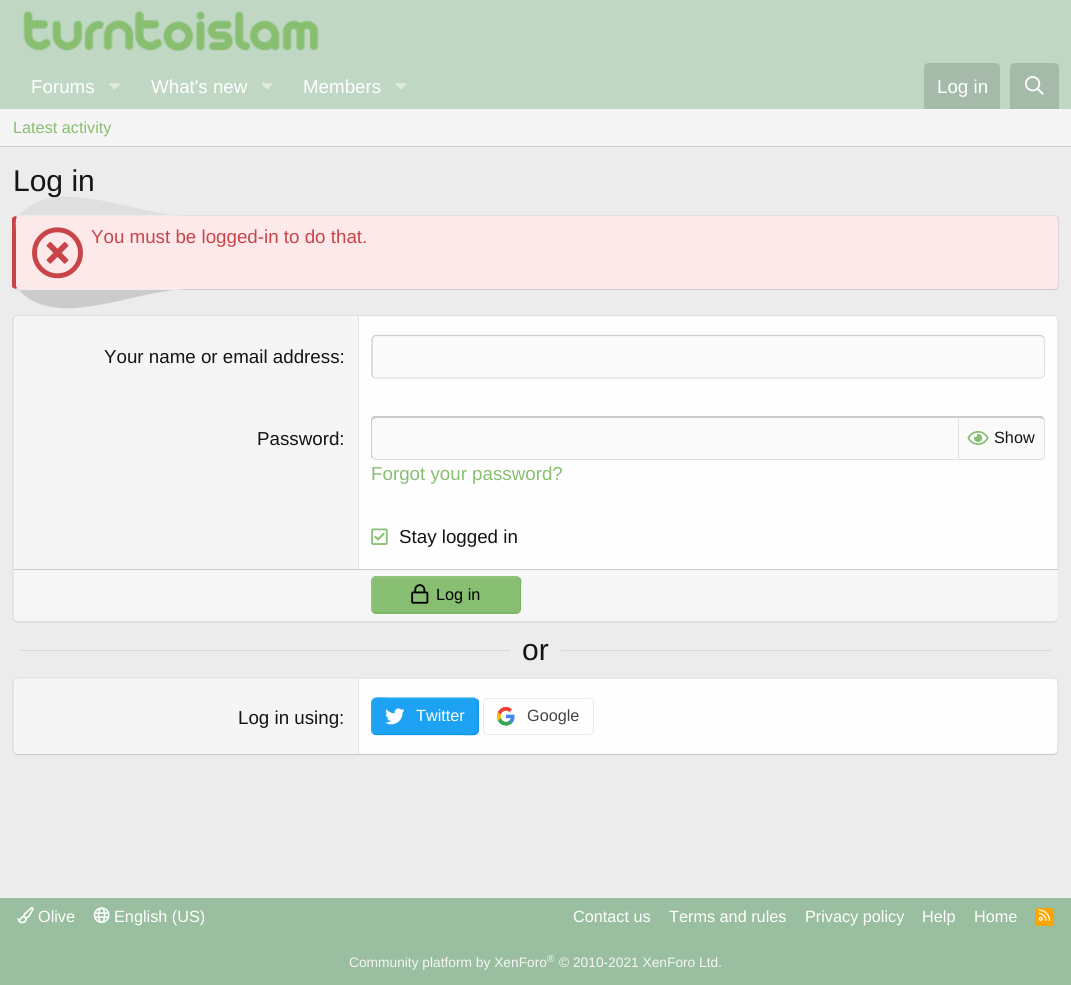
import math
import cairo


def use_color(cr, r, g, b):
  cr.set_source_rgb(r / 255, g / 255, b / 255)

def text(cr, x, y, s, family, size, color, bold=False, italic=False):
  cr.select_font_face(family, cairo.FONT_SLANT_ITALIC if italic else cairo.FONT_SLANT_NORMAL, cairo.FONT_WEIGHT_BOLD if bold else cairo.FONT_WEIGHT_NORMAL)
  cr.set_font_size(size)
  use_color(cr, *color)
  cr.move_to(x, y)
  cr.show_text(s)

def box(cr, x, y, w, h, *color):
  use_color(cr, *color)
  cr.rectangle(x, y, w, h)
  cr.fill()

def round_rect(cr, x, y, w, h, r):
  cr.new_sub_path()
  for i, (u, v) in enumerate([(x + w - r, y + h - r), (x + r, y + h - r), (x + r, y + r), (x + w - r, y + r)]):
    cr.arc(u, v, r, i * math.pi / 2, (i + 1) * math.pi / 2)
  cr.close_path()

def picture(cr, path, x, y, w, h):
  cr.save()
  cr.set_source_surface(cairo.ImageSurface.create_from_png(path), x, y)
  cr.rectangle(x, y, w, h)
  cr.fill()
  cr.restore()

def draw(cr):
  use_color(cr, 236, 236, 236)
  cr.paint()
  box(cr, 0, 0, 1071, 109, 191, 215, 195)
  picture(cr, "img_01.png", 23, 11, 296, 41)
  picture(cr, "img_02.png", 109, 83, 11, 7)
  picture(cr, "img_03.png", 261, 83, 12, 7)
  picture(cr, "img_04.png", 395, 83, 12, 7)
  use_color(cr, 165, 186, 169)
  cr.new_path()
  cr.move_to(929, 63)
  cr.line_to(995, 63)
  cr.curve_to(998, 63, 1000, 65, 1000, 68)
  cr.line_to(1000, 109)
  cr.line_to(924, 109)
  cr.line_to(924, 68)
  cr.curve_to(924, 65, 926, 63, 929, 63)
  cr.close_path()
  cr.fill()
  cr.new_path()
  cr.move_to(1015, 63)
  cr.line_to(1054, 63)
  cr.curve_to(1057, 63, 1059, 65, 1059, 68)
  cr.line_to(1059, 109)
  cr.line_to(1010, 109)
  cr.line_to(1010, 68)
  cr.curve_to(1010, 65, 1012, 63, 1015, 63)
  cr.close_path()
  cr.fill()
  picture(cr, "img_05.png", 1025, 76, 19, 19)
  box(cr, 0, 109, 1071, 39, 245, 245, 245)
  box(cr, 0, 146, 1071, 1, 203, 203, 203)
  use_color(cr, 253, 233, 233)
  cr.new_path()
  cr.move_to(18, 216)
  cr.line_to(1054, 216)
  cr.curve_to(1056, 216, 1058, 218, 1058, 220)
  cr.line_to(1058, 285)
  cr.curve_to(1058, 287, 1056, 289, 1054, 289)
  cr.line_to(18, 289)
  cr.curve_to(17, 289, 16, 287, 16, 285)
  cr.line_to(16, 220)
  cr.curve_to(16, 218, 17, 216, 18, 216)
  cr.close_path()
  cr.fill()
  use_color(cr, 216, 216, 216)
  cr.new_path()
  cr.move_to(1059, 287)
  cr.line_to(1057, 289)
  cr.line_to(1057, 288)
  cr.line_to(1058, 285)
  cr.line_to(1058, 220)
  cr.line_to(1057, 217)
  cr.line_to(1057, 216)
  cr.line_to(1059, 218)
  cr.close_path()
  cr.fill()
  use_color(cr, 203, 203, 203)
  cr.new_path()
  cr.move_to(18, 290)
  cr.line_to(1054, 290)
  cr.curve_to(1055, 290, 1057, 290, 1057, 289)
  cr.line_to(1057, 288)
  cr.line_to(1054, 289)
  cr.line_to(191, 289)
  cr.curve_to(133, 289, 55, 333, 17, 288)
  cr.line_to(15, 289)
  cr.close_path()
  cr.fill()
  picture(cr, "img_06.png", 32, 227, 51, 52)
  use_color(cr, 254, 254, 254)
  round_rect(cr, 13, 315, 1046, 308, 5)
  cr.fill()
  cr.new_path()
  cr.move_to(14.5, 317)
  cr.line_to(17.5, 315.5)
  cr.line_to(1054, 315.5)
  cr.line_to(1057, 317)
  use_color(cr, 223, 223, 223)
  cr.set_line_width(1.2)
  cr.stroke()
  cr.new_path()
  cr.move_to(1057, 317)
  cr.curve_to(1057.5, 317.5, 1058, 319, 1058, 320)
  cr.line_to(1058, 617.5)
  cr.curve_to(1058, 618.5, 1057.5, 620, 1057, 620.5)
  use_color(cr, 216, 216, 216)
  cr.stroke()
  cr.new_path()
  cr.move_to(1057, 620.5)
  cr.line_to(1054, 622)
  cr.line_to(17.5, 622)
  cr.line_to(14.5, 620.5)
  use_color(cr, 203, 203, 203)
  cr.stroke()
  cr.new_path()
  cr.move_to(14.5, 620.5)
  cr.curve_to(13.5, 620, 13, 618.5, 13, 617.5)
  cr.line_to(13, 320)
  cr.curve_to(13, 319, 13.5, 317.5, 14.5, 317)
  use_color(cr, 216, 216, 216)
  cr.stroke()
  use_color(cr, 245, 245, 245)
  cr.new_path()
  cr.move_to(18, 316)
  cr.line_to(359, 316)
  cr.line_to(359, 398)
  cr.line_to(14, 398)
  cr.line_to(14, 320)
  cr.curve_to(14, 318, 16, 316, 18, 316)
  cr.close_path()
  cr.fill()
  box(cr, 358, 316, 1, 253, 223, 223, 223)
  use_color(cr, 250, 250, 250)
  round_rect(cr, 371, 335, 674, 44, 5)
  cr.fill()
  cr.new_path()
  cr.move_to(1043, 337)
  cr.curve_to(1044, 337.5, 1044.5, 339, 1044.5, 340)
  cr.line_to(1044.5, 374)
  cr.curve_to(1044.5, 375, 1044, 376, 1043, 377)
  cr.curve_to(1042.5, 377.5, 1041, 378, 1040, 378)
  cr.line_to(376, 378)
  cr.curve_to(375, 378, 374, 377.5, 373, 377)
  use_color(cr, 223, 223, 223)
  cr.stroke()
  cr.new_path()
  cr.move_to(373, 377)
  cr.curve_to(372.5, 376, 372, 375, 372, 374)
  cr.line_to(372, 340)
  cr.curve_to(372, 339, 372.5, 337.5, 373, 337)
  cr.curve_to(374, 336, 375, 335.5, 376, 335.5)
  cr.line_to(1040, 335.5)
  cr.curve_to(1041, 335.5, 1042.5, 336, 1043, 337)
  use_color(cr, 203, 203, 203)
  cr.stroke()
  box(cr, 14, 398, 344, 171, 245, 245, 245)
  use_color(cr, 250, 250, 250)
  cr.new_path()
  cr.move_to(376, 416)
  cr.line_to(958, 416)
  cr.line_to(958, 460)
  cr.line_to(376, 460)
  cr.curve_to(373, 460, 371, 458, 371, 455)
  cr.line_to(371, 421)
  cr.curve_to(371, 418, 373, 416, 376, 416)
  cr.close_path()
  cr.fill()
  use_color(cr, 203, 203, 203)
  cr.new_path()
  cr.move_to(376, 418)
  cr.line_to(374, 419)
  cr.line_to(372, 417)
  cr.line_to(374, 416)
  cr.line_to(958, 416)
  cr.line_to(958, 418)
  cr.close_path()
  cr.fill()
  use_color(cr, 223, 223, 223)
  cr.new_path()
  cr.move_to(958, 460)
  cr.line_to(958, 459)
  cr.line_to(376, 459)
  cr.line_to(373, 458)
  cr.line_to(373, 459)
  cr.curve_to(373, 460, 375, 460, 376, 460)
  cr.close_path()
  cr.fill()
  use_color(cr, 203, 203, 203)
  cr.new_path()
  cr.move_to(371, 419)
  cr.line_to(372, 417)
  cr.line_to(374, 419)
  cr.curve_to(373, 419, 372, 420, 372, 421)
  cr.line_to(372, 455)
  cr.curve_to(372, 456, 373, 457, 373, 458)
  cr.line_to(373, 459)
  cr.line_to(371, 457)
  cr.close_path()
  cr.fill()
  use_color(cr, 250, 250, 250)
  cr.new_path()
  cr.move_to(958, 416)
  cr.line_to(1040, 416)
  cr.curve_to(1043, 416, 1045, 418, 1045, 421)
  cr.line_to(1045, 455)
  cr.curve_to(1045, 458, 1043, 460, 1040, 460)
  cr.line_to(958, 460)
  cr.close_path()
  cr.fill()
  use_color(cr, 203, 203, 203)
  cr.new_path()
  cr.move_to(958, 417)
  cr.line_to(958, 416)
  cr.line_to(1042, 416)
  cr.line_to(1044, 418)
  cr.line_to(1043, 419)
  cr.line_to(1040, 418)
  cr.line_to(959, 418)
  cr.close_path()
  cr.fill()
  use_color(cr, 223, 223, 223)
  cr.new_path()
  cr.move_to(1045, 455)
  cr.line_to(1045, 421)
  cr.curve_to(1045, 420, 1045, 418, 1044, 418)
  cr.line_to(1043, 419)
  cr.curve_to(1043, 419, 1044, 420, 1044, 421)
  cr.line_to(1044, 455)
  cr.curve_to(1044, 456, 1044, 457, 1043, 458)
  cr.line_to(1044, 459)
  cr.curve_to(1044, 458, 1045, 456, 1045, 455)
  cr.close_path()
  cr.fill()
  cr.new_path()
  cr.move_to(958, 460)
  cr.line_to(1041, 460)
  cr.line_to(1044, 459)
  cr.line_to(1043, 458)
  cr.line_to(1040, 459)
  cr.line_to(959, 459)
  cr.line_to(959, 458)
  cr.close_path()
  cr.fill()
  cr.new_path()
  cr.move_to(959, 418)
  cr.line_to(959, 458)
  cr.line_to(958, 460)
  cr.line_to(958, 417)
  cr.close_path()
  cr.fill()
  picture(cr, "img_07.png", 967, 430, 22, 15)
  picture(cr, "img_08.png", 371, 528, 17, 17)
  cr.set_source_rgba(0.961, 0.961, 0.961, 0.9)
  cr.new_path()
  cr.move_to(14, 569)
  cr.line_to(1058, 569)
  cr.line_to(1058, 617)
  cr.curve_to(1058, 619, 1056, 621, 1054, 621)
  cr.line_to(18, 621)
  cr.curve_to(16, 621, 14, 619, 14, 617)
  cr.close_path()
  cr.fill()
  box(cr, 14, 569, 1044, 1, 203, 203, 203)
  use_color(cr, 136, 190, 113)
  round_rect(cr, 371, 576, 150, 38, 5)
  cr.fill()
  cr.new_path()
  cr.move_to(519.5, 578)
  cr.curve_to(521.5, 580, 520.5, 583.5, 520.5, 586)
  cr.line_to(520.5, 604)
  cr.curve_to(520.5, 607.5, 521, 613, 516, 613)
  cr.line_to(376, 613)
  cr.line_to(373, 612)
  use_color(cr, 121, 182, 96)
  cr.stroke()
  cr.new_path()
  cr.move_to(373, 612)
  cr.curve_to(371, 610, 372, 606.5, 372, 604)
  cr.line_to(372, 586)
  cr.curve_to(372, 582.5, 371.5, 577, 376, 577)
  cr.line_to(516.5, 577)
  cr.line_to(519.5, 578)
  use_color(cr, 151, 198, 130)
  cr.stroke()
  picture(cr, "img_09.png", 411, 584, 18, 20)
  box(cr, 20, 650, 490, 1, 216, 216, 216)
  box(cr, 561, 650, 490, 1, 216, 216, 216)
  use_color(cr, 254, 254, 254)
  round_rect(cr, 13, 678, 1046, 77, 5)
  cr.fill()
  cr.new_path()
  cr.move_to(14.5, 679.5)
  cr.line_to(17.5, 678)
  cr.line_to(1054, 678)
  cr.line_to(1057, 679.5)
  use_color(cr, 223, 223, 223)
  cr.stroke()
  cr.new_path()
  cr.move_to(1057, 679.5)
  cr.line_to(1058, 682)
  cr.line_to(1058, 750.5)
  cr.line_to(1057, 753)
  use_color(cr, 216, 216, 216)
  cr.stroke()
  cr.new_path()
  cr.move_to(1057, 753)
  cr.line_to(1054, 754.5)
  cr.line_to(17.5, 754.5)
  cr.line_to(14.5, 753)
  use_color(cr, 203, 203, 203)
  cr.stroke()
  cr.new_path()
  cr.move_to(14.5, 753)
  cr.line_to(13, 750.5)
  cr.line_to(13, 682)
  cr.line_to(14.5, 679.5)
  use_color(cr, 216, 216, 216)
  cr.stroke()
  use_color(cr, 245, 245, 245)
  cr.new_path()
  cr.move_to(18, 679)
  cr.line_to(359, 679)
  cr.line_to(359, 754)
  cr.line_to(18, 754)
  cr.curve_to(16, 754, 14, 752, 14, 750)
  cr.line_to(14, 683)
  cr.curve_to(14, 681, 16, 679, 18, 679)
  cr.close_path()
  cr.fill()
  box(cr, 358, 679, 1, 75, 223, 223, 223)
  use_color(cr, 29, 161, 243)
  round_rect(cr, 371, 698, 108, 37, 5)
  cr.fill()
  cr.new_path()
  cr.move_to(477, 699.5)
  cr.curve_to(479, 701.5, 478, 704.5, 478, 707)
  cr.line_to(478, 716)
  cr.curve_to(478, 738, 481, 734.5, 457.5, 734.5)
  cr.line_to(376, 734.5)
  cr.line_to(373, 733)
  use_color(cr, 12, 149, 234)
  cr.stroke()
  cr.new_path()
  cr.move_to(373, 733)
  cr.curve_to(371, 731, 372, 728, 372, 725.5)
  cr.line_to(372, 716)
  cr.curve_to(372, 694.5, 369, 698, 392.5, 698)
  cr.line_to(474, 698)
  cr.line_to(477, 699.5)
  use_color(cr, 53, 171, 244)
  cr.stroke()
  picture(cr, "img_10.png", 385, 708, 20, 17)
  round_rect(cr, 483.5, 698.5, 110, 36, 4.5)
  use_color(cr, 233, 233, 233)
  cr.set_line_width(1)
  cr.stroke()
  picture(cr, "img_11.png", 497, 707, 18, 19)
  box(cr, 0, 898, 1071, 87, 153, 191, 160)
  picture(cr, "img_12.png", 17, 907, 17, 17)
  picture(cr, "img_13.png", 93, 907, 17, 16)
  use_color(cr, 255, 165, 0)
  round_rect(cr, 1035, 908, 19, 18, 2.5)
  cr.fill()
  picture(cr, "img_14.png", 1038, 909, 13, 12)
  text(cr, 31, 93, "Forums", "Liberation Sans", 18.75, (255, 255, 255))
  text(cr, 151, 93, "What's new", "Liberation Sans", 18.75, (255, 255, 255))
  text(cr, 303, 93, "Members", "Liberation Sans", 18.75, (255, 255, 255))
  text(cr, 937, 93, "Log in", "Liberation Sans", 18.75, (255, 255, 255))
  text(cr, 13, 133, "Latest activity", "Liberation Sans", 16.25, (136, 190, 113))
  text(cr, 13, 191, "Log in", "Liberation Sans", 30, (20, 20, 20))
  use_color(cr, 223, 223, 223)
  cr.new_path()
  cr.move_to(18, 215)
  cr.line_to(15, 216)
  cr.line_to(17, 217)
  cr.curve_to(55, 172, 133, 216, 191, 216)
  cr.line_to(1054, 216)
  cr.line_to(1057, 217)
  cr.line_to(1057, 216)
  cr.curve_to(1057, 215, 1055, 215, 1054, 215)
  cr.close_path()
  cr.fill()
  use_color(cr, 200, 68, 72)
  cr.new_path()
  cr.move_to(12, 218)
  cr.line_to(15, 216)
  cr.line_to(17, 217)
  cr.curve_to(15, 219, 16, 229, 16, 231)
  cr.line_to(16, 286)
  cr.line_to(17, 288)
  cr.line_to(15, 289)
  cr.line_to(12, 287)
  cr.close_path()
  cr.fill()
  text(cr, 91, 243, "You must be logged-in to do that.", "Liberation Sans", 18.75, (200, 68, 72))
  text(cr, 104, 363, "Your name or email address:", "Liberation Sans", 18.75, (20, 20, 20))
  text(cr, 257, 445, "Password:", "Liberation Sans", 18.75, (20, 20, 20))
  text(cr, 994, 443, "Show", "Liberation Sans", 16.25, (20, 20, 20))
  text(cr, 371, 480, "Forgot your password?", "Liberation Sans", 18.75, (136, 190, 113))
  text(cr, 399, 543, "Stay logged in", "Liberation Sans", 18.75, (20, 20, 20))
  text(cr, 436, 600, "Log in", "Liberation Sans", 16.25, (0, 0, 0))
  text(cr, 522, 660, "or", "Liberation Sans", 30, (20, 20, 20))
  text(cr, 238, 724, "Log in using:", "Liberation Sans", 18.75, (20, 20, 20))
  text(cr, 416, 721, "Twitter", "Liberation Sans", 16.25, (255, 255, 255))
  text(cr, 527, 721, "Google", "Liberation Sans", 16.25, (68, 68, 68))
  text(cr, 38, 922, "Olive", "Liberation Sans", 16.25, (255, 255, 255))
  text(cr, 114, 922, "English (US)", "Liberation Sans", 16.25, (255, 255, 255))
  text(cr, 573, 922, "Contact us", "Liberation Sans", 16.25, (255, 255, 255))
  text(cr, 669, 922, "Terms and rules", "Liberation Sans", 16.25, (255, 255, 255))
  text(cr, 805, 922, "Privacy policy", "Liberation Sans", 16.25, (255, 255, 255))
  text(cr, 922, 922, "Help", "Liberation Sans", 16.25, (255, 255, 255))
  text(cr, 974, 922, "Home", "Liberation Sans", 16.25, (255, 255, 255))
  text(cr, 349, 967, "Community platform by XenForo", "Liberation Sans", 13.75, (245, 245, 245))
  text(cr, 547, 962, "®", "Liberation Sans", 10, (245, 245, 245))
  text(cr, 559, 967, "© 2010-2021 XenForo Ltd.", "Liberation Sans", 13.75, (245, 245, 245))


surface = cairo.ImageSurface(cairo.FORMAT_RGB24, 1071, 985)
cr = cairo.Context(surface)
options = cairo.FontOptions()
options.set_hint_metrics(cairo.HINT_METRICS_OFF)
options.set_hint_style(cairo.HINT_STYLE_NONE)
cr.set_font_options(options)
cr.set_miter_limit(4)
draw(cr)
surface.write_to_png("out.png")
